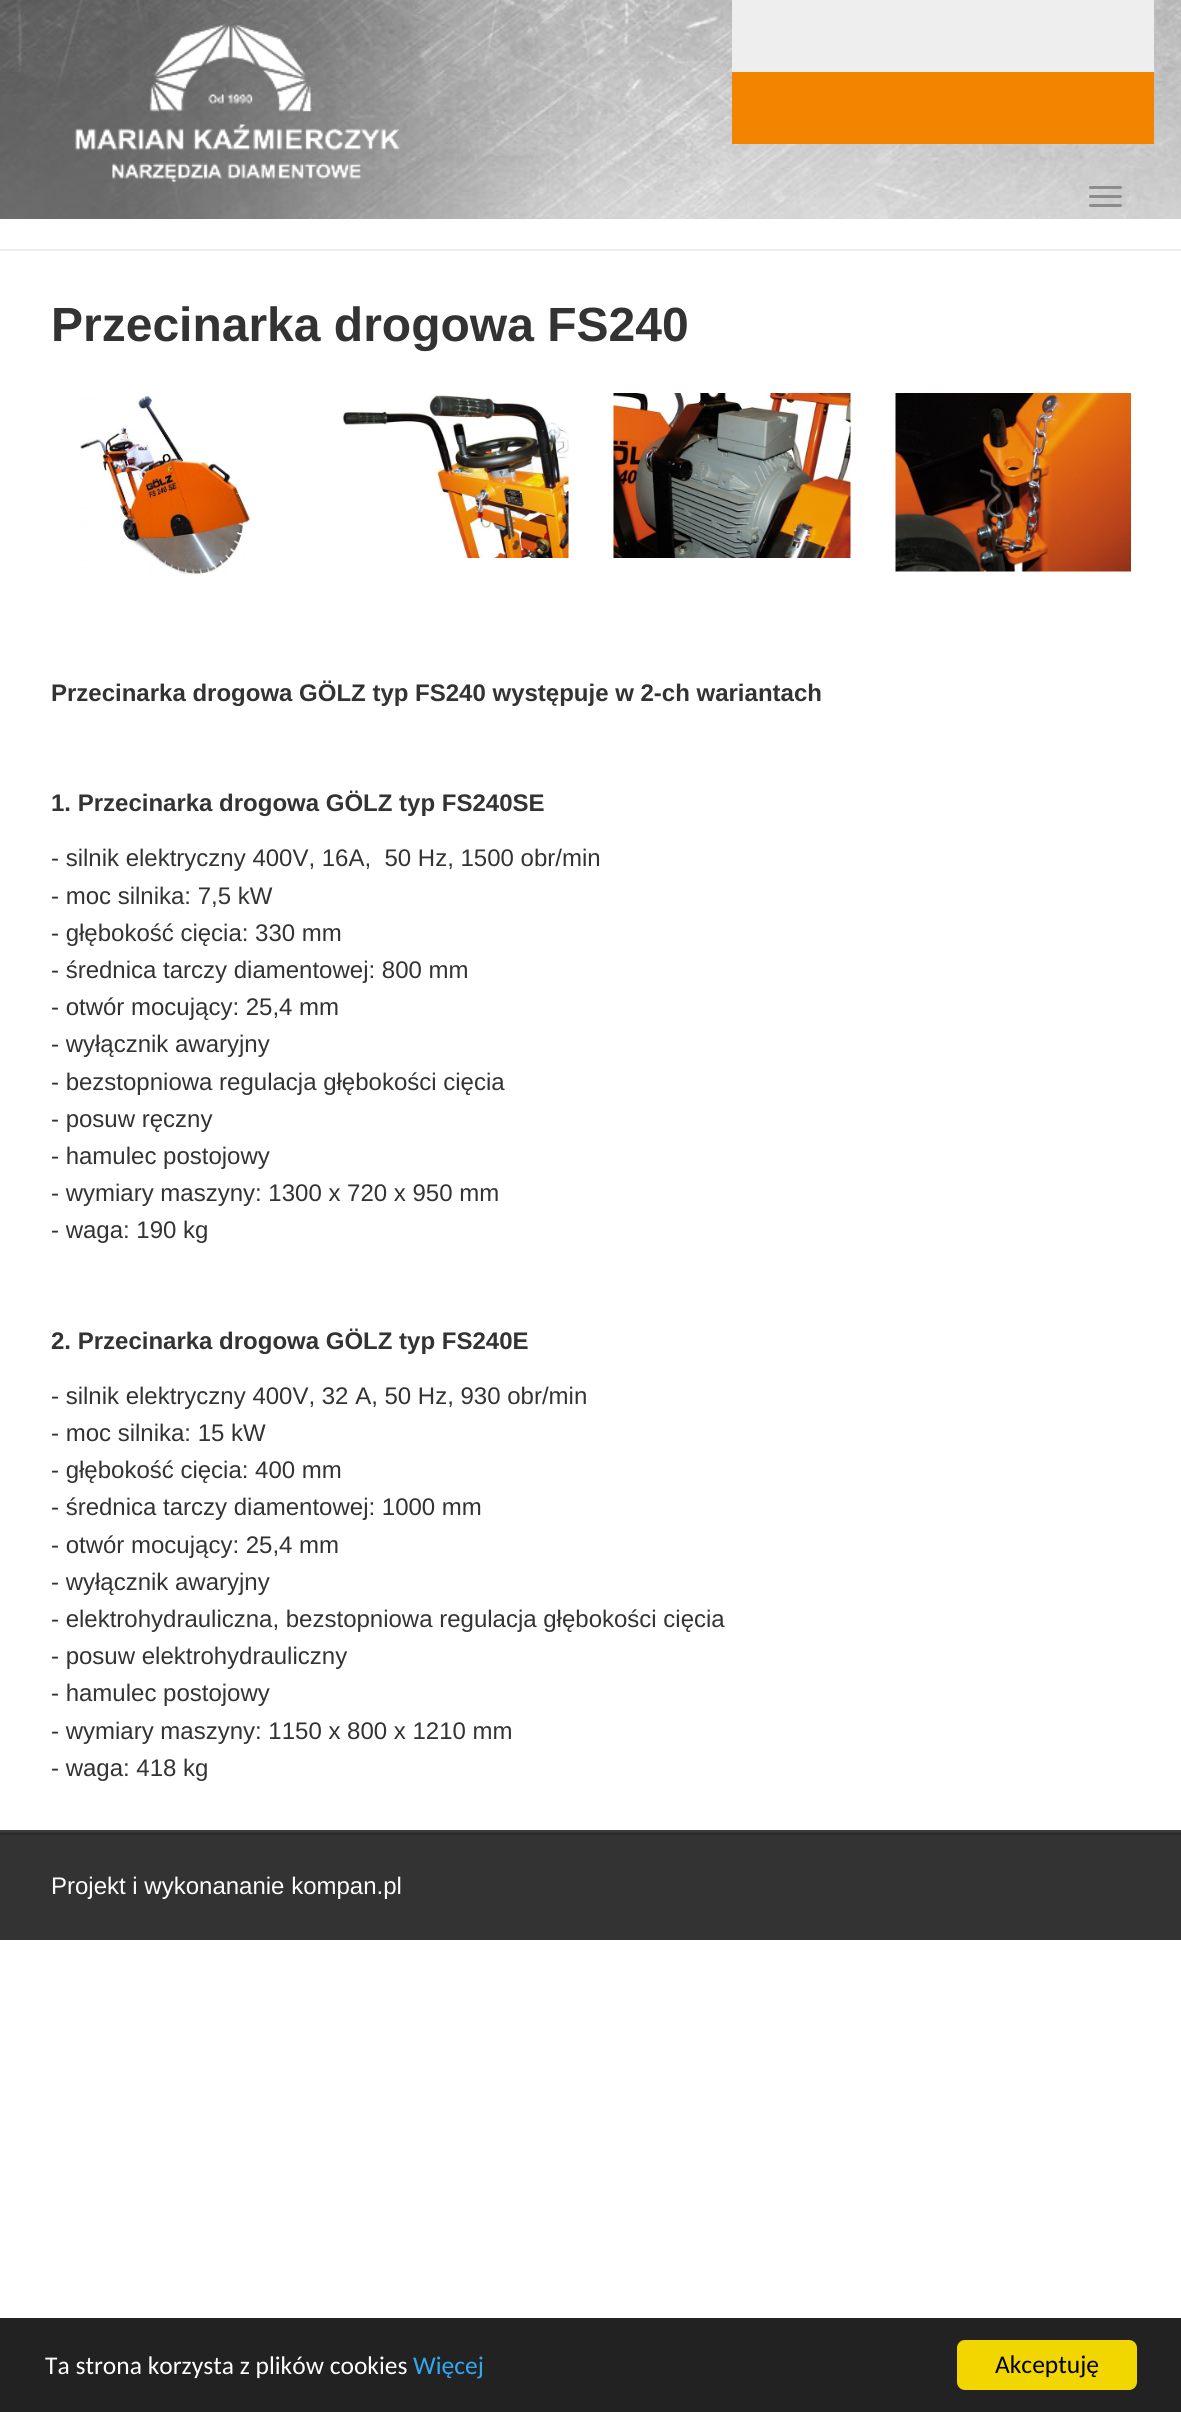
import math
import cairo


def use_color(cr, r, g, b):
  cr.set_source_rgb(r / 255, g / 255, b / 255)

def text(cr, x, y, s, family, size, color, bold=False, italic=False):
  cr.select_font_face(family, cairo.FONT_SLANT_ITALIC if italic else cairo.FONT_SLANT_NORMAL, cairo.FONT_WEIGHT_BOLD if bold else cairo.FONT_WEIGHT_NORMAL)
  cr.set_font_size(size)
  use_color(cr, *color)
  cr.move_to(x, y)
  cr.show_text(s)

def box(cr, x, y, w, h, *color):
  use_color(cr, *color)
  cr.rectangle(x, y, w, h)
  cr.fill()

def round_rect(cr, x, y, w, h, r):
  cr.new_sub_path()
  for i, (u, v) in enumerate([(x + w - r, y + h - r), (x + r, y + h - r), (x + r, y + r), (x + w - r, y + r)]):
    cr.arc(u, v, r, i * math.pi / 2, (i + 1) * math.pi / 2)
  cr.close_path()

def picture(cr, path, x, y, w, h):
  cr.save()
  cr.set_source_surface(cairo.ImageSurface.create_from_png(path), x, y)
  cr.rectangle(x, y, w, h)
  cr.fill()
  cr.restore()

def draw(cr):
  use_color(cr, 255, 255, 255)
  cr.paint()
  picture(cr, "img_01.png", 0, 0, 1181, 219)
  box(cr, 732, 0, 422, 72, 238, 238, 238)
  box(cr, 732, 72, 422, 72, 243, 132, 0)
  use_color(cr, 140, 140, 140)
  round_rect(cr, 1089, 186, 33, 3, 1.5)
  cr.fill()
  round_rect(cr, 1089, 195, 33, 3, 1.5)
  cr.fill()
  round_rect(cr, 1089, 204, 33, 3, 1.5)
  cr.fill()
  box(cr, 0, 249, 1181, 2, 238, 238, 238)
  picture(cr, "img_02.png", 74, 24, 326, 158)
  picture(cr, "img_03.png", 80, 393, 172, 183)
  picture(cr, "img_04.png", 342, 395, 227, 163)
  picture(cr, "img_05.png", 613, 393, 238, 165)
  picture(cr, "img_06.png", 895, 393, 236, 179)
  box(cr, 0, 1832, 1181, 1, 51, 51, 51)
  box(cr, 0, 1830, 1181, 2, 60, 60, 60)
  box(cr, 0, 1835, 1181, 105, 51, 51, 51)
  box(cr, 0, 1833, 1181, 2, 43, 43, 43)
  box(cr, 0, 2318, 1181, 94, 34, 34, 34)
  use_color(cr, 241, 214, 0)
  round_rect(cr, 957, 2340, 180, 50, 8)
  cr.fill()
  text(cr, 51, 341, "Przecinarka drogowa FS240", "Liberation Sans", 48, (51, 51, 51), bold=True)
  text(cr, 51, 701, "Przecinarka drogowa GÖLZ typ FS240 występuje w 2-ch wariantach", "Liberation Sans", 24, (51, 51, 51), bold=True)
  text(cr, 51, 811, "1. Przecinarka drogowa GÖLZ typ FS240SE", "Liberation Sans", 24, (51, 51, 51), bold=True)
  text(cr, 51, 866, "- silnik elektryczny 400V, 16A,  50 Hz, 1500 obr/min", "Liberation Sans", 24, (51, 51, 51))
  text(cr, 51, 904, "- moc silnika: 7,5 kW", "Liberation Sans", 24, (51, 51, 51))
  text(cr, 51, 941, "- głębokość cięcia: 330 mm", "Liberation Sans", 24, (51, 51, 51))
  text(cr, 51, 978, "- średnica tarczy diamentowej: 800 mm", "Liberation Sans", 24, (51, 51, 51))
  text(cr, 51, 1015, "- otwór mocujący: 25,4 mm", "Liberation Sans", 24, (51, 51, 51))
  text(cr, 51, 1052, "- wyłącznik awaryjny", "Liberation Sans", 24, (51, 51, 51))
  text(cr, 51, 1090, "- bezstopniowa regulacja głębokości cięcia", "Liberation Sans", 24, (51, 51, 51))
  text(cr, 51, 1127, "- posuw ręczny", "Liberation Sans", 24, (51, 51, 51))
  text(cr, 51, 1164, "- hamulec postojowy", "Liberation Sans", 24, (51, 51, 51))
  text(cr, 51, 1201, "- wymiary maszyny: 1300 x 720 x 950 mm", "Liberation Sans", 24, (51, 51, 51))
  text(cr, 51, 1238, "- waga: 190 kg", "Liberation Sans", 24, (51, 51, 51))
  text(cr, 51, 1349, "2. Przecinarka drogowa GÖLZ typ FS240E", "Liberation Sans", 24, (51, 51, 51), bold=True)
  text(cr, 51, 1404, "- silnik elektryczny 400V, 32 A, 50 Hz, 930 obr/min", "Liberation Sans", 24, (51, 51, 51))
  text(cr, 51, 1441, "- moc silnika: 15 kW", "Liberation Sans", 24, (51, 51, 51))
  text(cr, 51, 1478, "- głębokość cięcia: 400 mm", "Liberation Sans", 24, (51, 51, 51))
  text(cr, 51, 1515, "- średnica tarczy diamentowej: 1000 mm", "Liberation Sans", 24, (51, 51, 51))
  text(cr, 51, 1553, "- otwór mocujący: 25,4 mm", "Liberation Sans", 24, (51, 51, 51))
  text(cr, 51, 1590, "- wyłącznik awaryjny", "Liberation Sans", 24, (51, 51, 51))
  text(cr, 51, 1627, "- elektrohydrauliczna, bezstopniowa regulacja głębokości cięcia", "Liberation Sans", 24, (51, 51, 51))
  text(cr, 51, 1664, "- posuw elektrohydrauliczny", "Liberation Sans", 24, (51, 51, 51))
  text(cr, 51, 1701, "- hamulec postojowy", "Liberation Sans", 24, (51, 51, 51))
  text(cr, 51, 1739, "- wymiary maszyny: 1150 x 800 x 1210 mm", "Liberation Sans", 24, (51, 51, 51))
  text(cr, 51, 1776, "- waga: 418 kg", "Liberation Sans", 24, (51, 51, 51))
  text(cr, 51, 1894, "Projekt i wykonananie kompan.pl", "Liberation Sans", 24, (255, 255, 255))
  text(cr, 45, 2374, "Ta strona korzysta z plików cookies", "Carlito", 25.5, (255, 255, 255))
  text(cr, 413, 2374, "Więcej", "Carlito", 25.5, (49, 168, 240))
  text(cr, 995, 2373, "Akceptuję", "Carlito", 25.5, (0, 0, 0))


surface = cairo.ImageSurface(cairo.FORMAT_RGB24, 1181, 2412)
cr = cairo.Context(surface)
options = cairo.FontOptions()
options.set_hint_metrics(cairo.HINT_METRICS_OFF)
options.set_hint_style(cairo.HINT_STYLE_NONE)
cr.set_font_options(options)
cr.set_miter_limit(4)
draw(cr)
surface.write_to_png("out.png")
